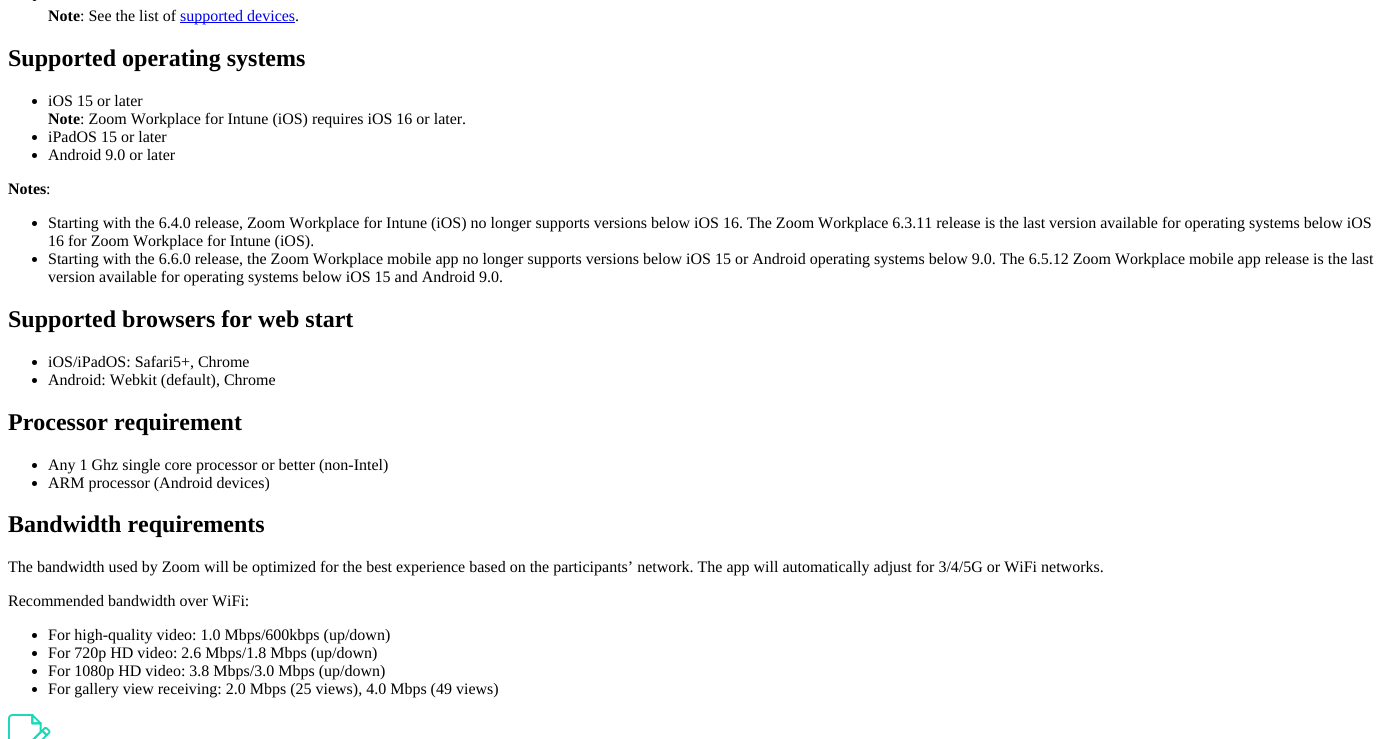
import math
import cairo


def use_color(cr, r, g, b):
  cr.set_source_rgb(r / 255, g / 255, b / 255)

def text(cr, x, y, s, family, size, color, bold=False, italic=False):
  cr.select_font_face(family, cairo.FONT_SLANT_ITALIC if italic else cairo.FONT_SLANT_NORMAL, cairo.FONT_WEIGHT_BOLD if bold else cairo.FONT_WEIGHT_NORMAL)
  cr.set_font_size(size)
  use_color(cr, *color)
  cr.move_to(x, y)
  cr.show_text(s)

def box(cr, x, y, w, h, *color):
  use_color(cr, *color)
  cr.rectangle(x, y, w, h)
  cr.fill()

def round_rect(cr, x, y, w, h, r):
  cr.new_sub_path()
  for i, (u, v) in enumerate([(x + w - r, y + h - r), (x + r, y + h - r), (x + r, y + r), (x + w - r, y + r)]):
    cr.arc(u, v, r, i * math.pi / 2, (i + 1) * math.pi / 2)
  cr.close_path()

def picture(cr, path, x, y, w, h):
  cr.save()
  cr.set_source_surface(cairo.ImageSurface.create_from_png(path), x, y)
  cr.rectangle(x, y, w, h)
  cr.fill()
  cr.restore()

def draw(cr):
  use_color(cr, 255, 255, 255)
  cr.paint()
  use_color(cr, 0, 0, 0)
  round_rect(cr, 32, -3, 5, 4, 2.5)
  cr.fill()
  box(cr, 180, 22, 115, 1, 0, 0, 238)
  use_color(cr, 0, 0, 0)
  cr.arc(34.5, 101.5, 2.5, 0, 2 * math.pi)
  cr.fill()
  cr.arc(34.5, 137.5, 2.5, 0, 2 * math.pi)
  cr.fill()
  cr.arc(34.5, 155.5, 2.5, 0, 2 * math.pi)
  cr.fill()
  cr.arc(34.5, 223.5, 2.5, 0, 2 * math.pi)
  cr.fill()
  cr.arc(34.5, 259.5, 2.5, 0, 2 * math.pi)
  cr.fill()
  cr.arc(34.5, 362.5, 2.5, 0, 2 * math.pi)
  cr.fill()
  cr.arc(34.5, 380.5, 2.5, 0, 2 * math.pi)
  cr.fill()
  cr.arc(34.5, 465.5, 2.5, 0, 2 * math.pi)
  cr.fill()
  cr.arc(34.5, 483.5, 2.5, 0, 2 * math.pi)
  cr.fill()
  cr.arc(34.5, 635.5, 2.5, 0, 2 * math.pi)
  cr.fill()
  cr.arc(34.5, 653.5, 2.5, 0, 2 * math.pi)
  cr.fill()
  cr.arc(34.5, 671.5, 2.5, 0, 2 * math.pi)
  cr.fill()
  cr.arc(34.5, 689.5, 2.5, 0, 2 * math.pi)
  cr.fill()
  picture(cr, "img_01.png", 8, 714, 43, 25)
  text(cr, 48, 21, "Note", "Liberation Serif", 16, (0, 0, 0), bold=True)
  text(cr, 80, 21, ": See the list of", "Liberation Serif", 16, (0, 0, 0))
  text(cr, 180, 21, "supported devices", "Liberation Serif", 16, (0, 0, 238))
  text(cr, 295, 21, ".", "Liberation Serif", 16, (0, 0, 0))
  text(cr, 8, 66, "Supported operating systems", "Liberation Serif", 24, (0, 0, 0), bold=True)
  text(cr, 48, 106, "iOS 15 or later", "Liberation Serif", 16, (0, 0, 0))
  text(cr, 48, 124, "Note", "Liberation Serif", 16, (0, 0, 0), bold=True)
  text(cr, 80, 124, ": Zoom Workplace for Intune (iOS) requires iOS 16 or later.", "Liberation Serif", 16, (0, 0, 0))
  text(cr, 48, 142, "iPadOS 15 or later", "Liberation Serif", 16, (0, 0, 0))
  text(cr, 48, 160, "Android 9.0 or later", "Liberation Serif", 16, (0, 0, 0))
  text(cr, 8, 194, "Notes", "Liberation Serif", 16, (0, 0, 0), bold=True)
  text(cr, 46, 194, ":", "Liberation Serif", 16, (0, 0, 0))
  text(cr, 48, 228, "Starting with the 6.4.0 release, Zoom Workplace for Intune (iOS) no longer supports versions below iOS 16. The Zoom Workplace 6.3.11 release is the last version available for operating systems below iOS", "Liberation Serif", 16, (0, 0, 0))
  text(cr, 48, 246, "16 for Zoom Workplace for Intune (iOS).", "Liberation Serif", 16, (0, 0, 0))
  text(cr, 48, 264, "Starting with the 6.6.0 release, the Zoom Workplace mobile app no longer supports versions below iOS 15 or Android operating systems below 9.0. The 6.5.12 Zoom Workplace mobile app release is the last", "Liberation Serif", 16, (0, 0, 0))
  text(cr, 48, 282, "version available for operating systems below iOS 15 and Android 9.0.", "Liberation Serif", 16, (0, 0, 0))
  text(cr, 8, 327, "Supported browsers for web start", "Liberation Serif", 24, (0, 0, 0), bold=True)
  text(cr, 48, 367, "iOS/iPadOS: Safari5+, Chrome", "Liberation Serif", 16, (0, 0, 0))
  text(cr, 48, 385, "Android: Webkit (default), Chrome", "Liberation Serif", 16, (0, 0, 0))
  text(cr, 8, 430, "Processor requirement", "Liberation Serif", 24, (0, 0, 0), bold=True)
  text(cr, 48, 470, "Any 1 Ghz single core processor or better (non-Intel)", "Liberation Serif", 16, (0, 0, 0))
  text(cr, 48, 488, "ARM processor (Android devices)", "Liberation Serif", 16, (0, 0, 0))
  text(cr, 8, 532, "Bandwidth requirements", "Liberation Serif", 24, (0, 0, 0), bold=True)
  text(cr, 8, 572, "The bandwidth used by Zoom will be optimized for the best experience based on the participants’ network. The app will automatically adjust for 3/4/5G or WiFi networks.", "Liberation Serif", 16, (0, 0, 0))
  text(cr, 8, 606, "Recommended bandwidth over WiFi:", "Liberation Serif", 16, (0, 0, 0))
  text(cr, 48, 640, "For high-quality video: 1.0 Mbps/600kbps (up/down)", "Liberation Serif", 16, (0, 0, 0))
  text(cr, 48, 658, "For 720p HD video: 2.6 Mbps/1.8 Mbps (up/down)", "Liberation Serif", 16, (0, 0, 0))
  text(cr, 48, 676, "For 1080p HD video: 3.8 Mbps/3.0 Mbps (up/down)", "Liberation Serif", 16, (0, 0, 0))
  text(cr, 48, 694, "For gallery view receiving: 2.0 Mbps (25 views), 4.0 Mbps (49 views)", "Liberation Serif", 16, (0, 0, 0))


surface = cairo.ImageSurface(cairo.FORMAT_RGB24, 1384, 739)
cr = cairo.Context(surface)
options = cairo.FontOptions()
options.set_hint_metrics(cairo.HINT_METRICS_OFF)
options.set_hint_style(cairo.HINT_STYLE_NONE)
cr.set_font_options(options)
cr.set_miter_limit(4)
draw(cr)
surface.write_to_png("out.png")
